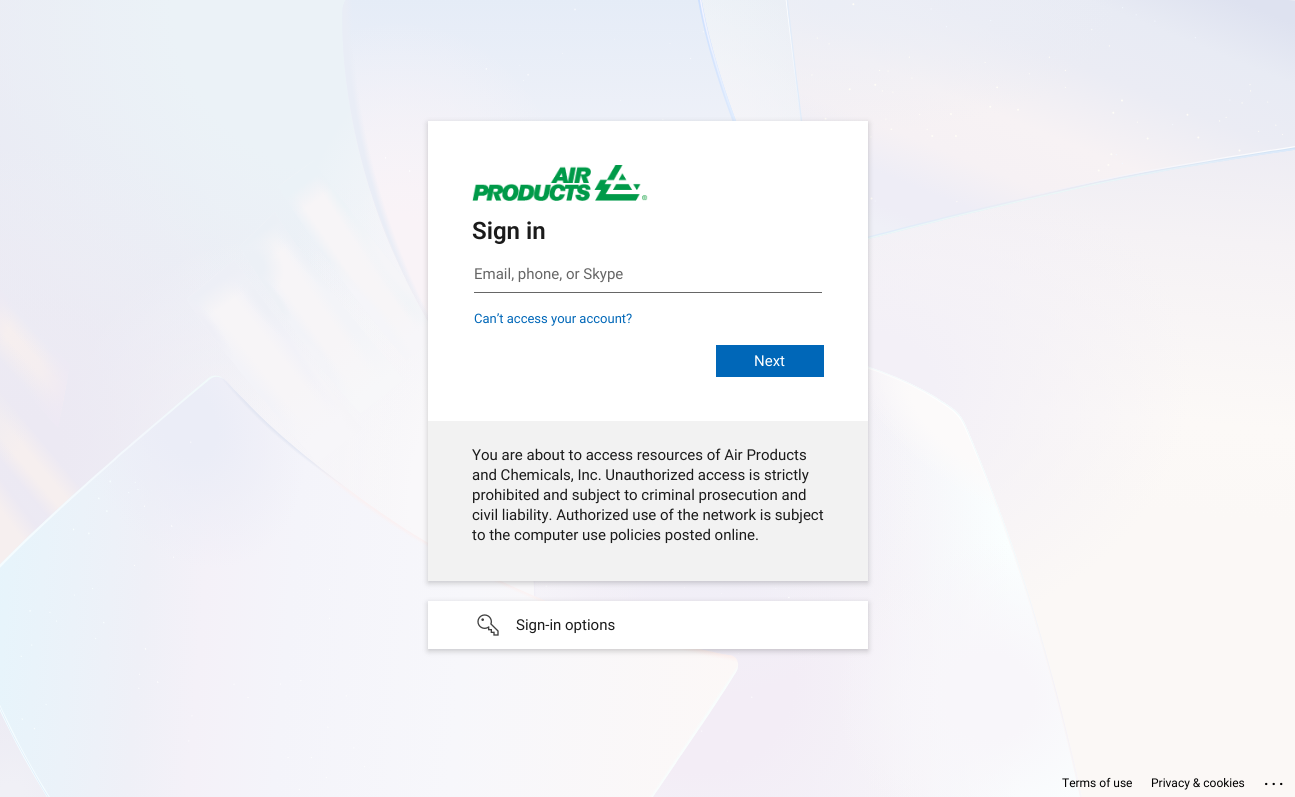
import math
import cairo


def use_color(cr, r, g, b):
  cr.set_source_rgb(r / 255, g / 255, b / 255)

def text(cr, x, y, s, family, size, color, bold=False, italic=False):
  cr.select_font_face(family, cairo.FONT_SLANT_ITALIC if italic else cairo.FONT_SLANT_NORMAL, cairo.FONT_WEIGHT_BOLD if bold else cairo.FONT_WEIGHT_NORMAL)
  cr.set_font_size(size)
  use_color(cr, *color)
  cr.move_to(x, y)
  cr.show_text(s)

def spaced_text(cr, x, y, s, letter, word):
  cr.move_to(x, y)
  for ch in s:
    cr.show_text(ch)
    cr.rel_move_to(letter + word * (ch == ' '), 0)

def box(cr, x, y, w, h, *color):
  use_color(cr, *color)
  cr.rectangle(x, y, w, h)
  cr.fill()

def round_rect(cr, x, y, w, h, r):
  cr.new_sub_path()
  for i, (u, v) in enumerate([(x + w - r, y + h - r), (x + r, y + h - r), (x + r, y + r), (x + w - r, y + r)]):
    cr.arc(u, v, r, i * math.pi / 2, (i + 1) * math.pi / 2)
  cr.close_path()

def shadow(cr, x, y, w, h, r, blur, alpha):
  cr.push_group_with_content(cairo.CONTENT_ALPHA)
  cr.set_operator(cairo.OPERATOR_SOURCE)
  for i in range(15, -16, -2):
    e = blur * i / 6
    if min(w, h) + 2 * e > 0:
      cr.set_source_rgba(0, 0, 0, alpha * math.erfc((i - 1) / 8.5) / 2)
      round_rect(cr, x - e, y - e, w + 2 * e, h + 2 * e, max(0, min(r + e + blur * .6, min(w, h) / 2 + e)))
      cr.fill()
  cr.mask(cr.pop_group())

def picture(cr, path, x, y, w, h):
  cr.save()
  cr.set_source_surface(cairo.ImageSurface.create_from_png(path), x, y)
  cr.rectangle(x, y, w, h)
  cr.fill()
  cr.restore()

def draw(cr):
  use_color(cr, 255, 255, 255)
  cr.paint()
  picture(cr, "img_01.png", 0, 0, 1295, 797)
  use_color(cr, 0, 0, 0)
  shadow(cr, 428, 123, 440, 460, 0, 3, 0.2)
  box(cr, 428, 121, 440, 300, 255, 255, 255)
  picture(cr, "img_02.png", 472, 165, 176, 36)
  box(cr, 474, 292, 348, 1, 102, 102, 102)
  box(cr, 716, 345, 108, 32, 0, 103, 184)
  box(cr, 428, 421, 440, 160, 242, 242, 242)
  use_color(cr, 0, 0, 0)
  shadow(cr, 428, 603, 440, 48, 0, 3, 0.2)
  box(cr, 428, 601, 440, 48, 255, 255, 255)
  picture(cr, "img_03.png", 477, 614, 22, 22)
  text(cr, 472, 239, "Sign in", "Roboto SemiBold", 24, (27, 27, 27))
  text(cr, 474, 279, "Email, phone, or Skype", "Roboto", 15, (102, 102, 102))
  text(cr, 474, 323, "Can’t access your account?", "Roboto", 13, (0, 103, 184))
  text(cr, 754, 366, "Next", "Roboto", 15, (255, 255, 255))
  text(cr, 472, 460, "You are about to access resources of Air Products", "Roboto", 15, (27, 27, 27))
  text(cr, 472, 480, "and Chemicals, Inc. Unauthorized access is strictly", "Roboto", 15, (27, 27, 27))
  text(cr, 472, 500, "prohibited and subject to criminal prosecution and", "Roboto", 15, (27, 27, 27))
  text(cr, 472, 520, "civil liability. Authorized use of the network is subject", "Roboto", 15, (27, 27, 27))
  text(cr, 472, 540, "to the computer use policies posted online.", "Roboto", 15, (27, 27, 27))
  text(cr, 516, 630, "Sign-in options", "Roboto", 15, (27, 27, 27))
  text(cr, 1062, 787, "Terms of use", "Roboto", 12, (0, 0, 0))
  text(cr, 1151, 787, "Privacy & cookies", "Roboto", 12, (0, 0, 0))
  cr.select_font_face("Roboto SemiBold")
  cr.set_font_size(16)
  spaced_text(cr, 1264, 785, "...", 3, 0)


surface = cairo.ImageSurface(cairo.FORMAT_RGB24, 1295, 797)
cr = cairo.Context(surface)
options = cairo.FontOptions()
options.set_hint_metrics(cairo.HINT_METRICS_OFF)
options.set_hint_style(cairo.HINT_STYLE_NONE)
cr.set_font_options(options)
cr.set_miter_limit(4)
draw(cr)
surface.write_to_png("out.png")
